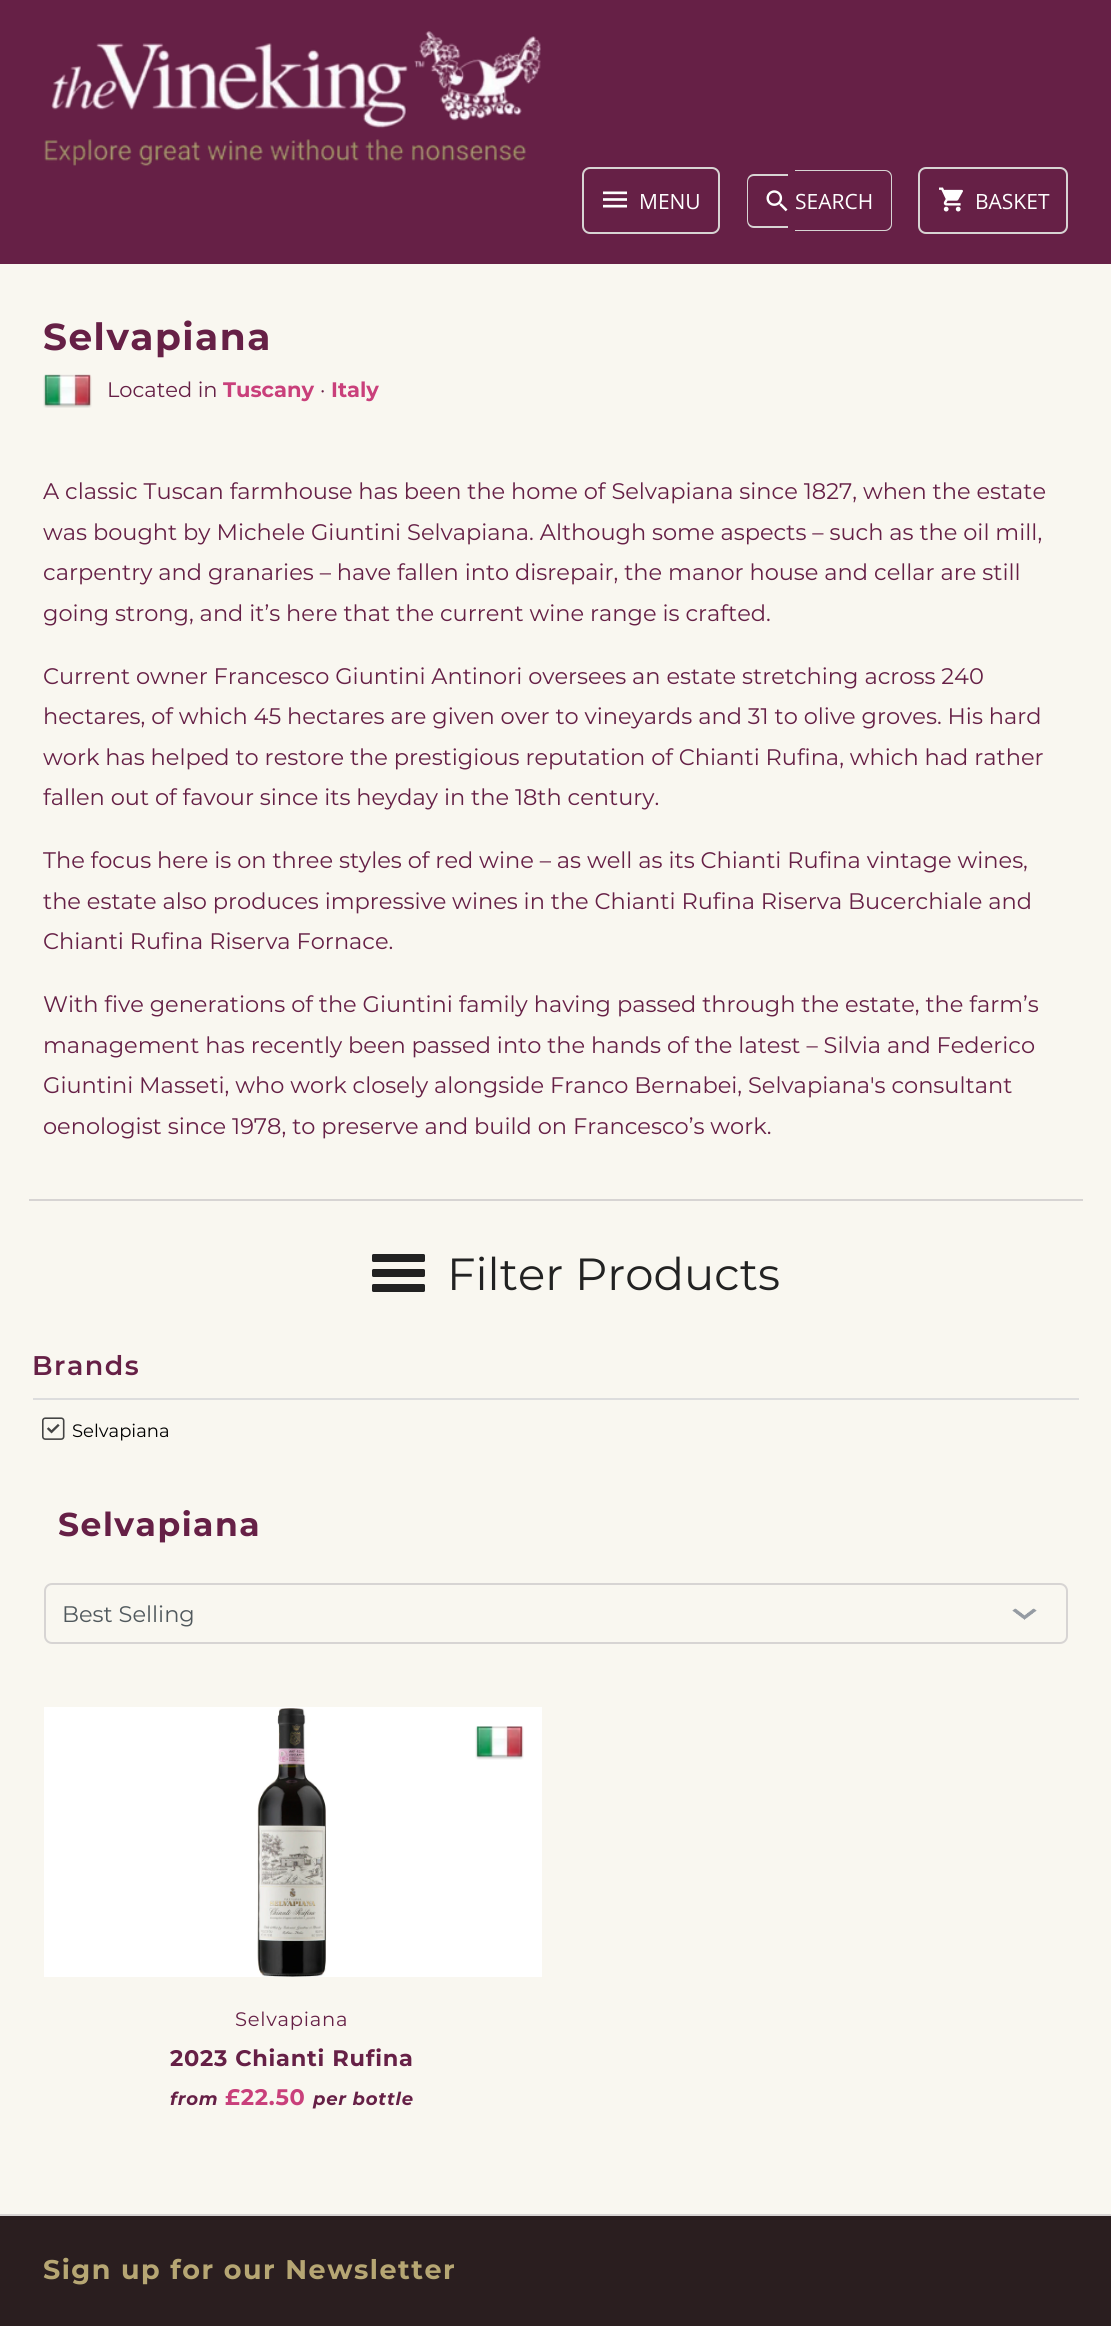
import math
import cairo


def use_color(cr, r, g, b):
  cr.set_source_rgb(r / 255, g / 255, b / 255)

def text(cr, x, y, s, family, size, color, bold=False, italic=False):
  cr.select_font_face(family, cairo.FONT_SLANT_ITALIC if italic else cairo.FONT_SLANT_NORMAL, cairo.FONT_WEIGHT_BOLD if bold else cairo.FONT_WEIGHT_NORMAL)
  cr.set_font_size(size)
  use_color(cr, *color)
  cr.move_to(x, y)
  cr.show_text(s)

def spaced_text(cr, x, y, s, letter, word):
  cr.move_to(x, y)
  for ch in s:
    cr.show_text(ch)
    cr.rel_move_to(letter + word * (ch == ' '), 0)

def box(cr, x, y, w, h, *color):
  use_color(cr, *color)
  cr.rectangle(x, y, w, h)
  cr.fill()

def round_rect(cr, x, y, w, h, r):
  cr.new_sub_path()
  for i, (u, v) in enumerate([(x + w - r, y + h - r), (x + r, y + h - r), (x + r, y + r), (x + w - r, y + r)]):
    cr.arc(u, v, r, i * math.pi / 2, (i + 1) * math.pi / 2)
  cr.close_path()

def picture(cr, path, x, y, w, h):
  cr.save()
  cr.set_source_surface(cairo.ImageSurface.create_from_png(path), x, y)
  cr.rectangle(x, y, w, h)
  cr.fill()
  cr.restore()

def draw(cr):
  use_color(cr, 249, 247, 240)
  cr.paint()
  box(cr, 0, 0, 1111, 264, 102, 32, 70)
  picture(cr, "img_01.png", 44, 31, 497, 135)
  round_rect(cr, 583, 168, 136, 65, 7)
  use_color(cr, 215, 212, 211)
  cr.stroke()
  picture(cr, "img_02.png", 603, 191, 24, 17)
  cr.set_fill_rule(cairo.FILL_RULE_EVEN_ODD)
  cr.new_path()
  cr.move_to(754, 174)
  cr.line_to(788, 174)
  cr.line_to(788, 228)
  cr.line_to(754, 228)
  cr.curve_to(750, 228, 747, 225, 747, 220)
  cr.line_to(747, 182)
  cr.curve_to(747, 177, 750, 174, 754, 174)
  cr.close_path()
  cr.move_to(754, 176)
  cr.line_to(788, 176)
  cr.line_to(788, 226)
  cr.line_to(754, 226)
  cr.curve_to(751, 226, 748, 224, 748, 220)
  cr.line_to(748, 182)
  cr.curve_to(748, 178, 751, 176, 754, 176)
  cr.close_path()
  cr.fill()
  cr.new_path()
  cr.move_to(795, 170)
  cr.line_to(885, 170)
  cr.curve_to(889, 170, 892, 173, 892, 177)
  cr.line_to(892, 224)
  cr.curve_to(892, 228, 889, 231, 885, 231)
  cr.line_to(795, 231)
  cr.close_path()
  cr.move_to(795, 171)
  cr.line_to(885, 171)
  cr.curve_to(888, 171, 891, 174, 891, 177)
  cr.line_to(891, 224)
  cr.curve_to(891, 227, 888, 230, 885, 230)
  cr.line_to(795, 230)
  cr.close_path()
  cr.fill()
  picture(cr, "img_03.png", 766, 190, 22, 22)
  round_rect(cr, 919, 168, 148, 65, 7)
  cr.stroke()
  picture(cr, "img_04.png", 939, 187, 24, 25)
  box(cr, 29, 1199, 1054, 2, 215, 212, 211)
  picture(cr, "img_05.png", 43, 374, 49, 34)
  use_color(cr, 34, 34, 34)
  round_rect(cr, 372, 1269, 53, 8, 1.5)
  cr.fill()
  round_rect(cr, 372, 1254, 53, 8, 1.5)
  cr.fill()
  round_rect(cr, 372, 1284, 53, 8, 1.5)
  cr.fill()
  box(cr, 33, 1398, 1046, 2, 221, 221, 221)
  picture(cr, "img_06.png", 42, 1417, 23, 23)
  picture(cr, "img_07.png", 1012, 1608, 25, 12)
  round_rect(cr, 45, 1584, 1022, 59, 7)
  use_color(cr, 215, 212, 211)
  cr.stroke()
  box(cr, 44, 1707, 498, 270, 255, 255, 255)
  picture(cr, "img_08.png", 475, 1726, 49, 34)
  picture(cr, "img_09.png", 257, 1708, 70, 269)
  box(cr, 0, 2216, 1111, 110, 42, 30, 31)
  box(cr, 0, 2214, 1111, 2, 215, 212, 211)
  text(cr, 639, 209, "MENU", "Open Sans", 21, (255, 255, 255))
  text(cr, 795, 209, "SEARCH", "Open Sans", 21, (255, 255, 255))
  text(cr, 975, 209, "BASKET", "Open Sans", 21, (255, 255, 255))
  cr.select_font_face("Montserrat", cairo.FONT_SLANT_NORMAL, cairo.FONT_WEIGHT_BOLD)
  cr.set_font_size(37.5)
  use_color(cr, 102, 32, 70)
  spaced_text(cr, 43, 350, "Selvapiana", 1.5, 0)
  text(cr, 107, 397, "Located in", "Montserrat Thin", 21, (102, 32, 70))
  text(cr, 223, 397, "Tuscany", "Montserrat", 21, (201, 64, 123), bold=True)
  text(cr, 320, 397, "·", "Montserrat Thin", 21, (102, 32, 70))
  text(cr, 331, 397, "Italy", "Montserrat", 21, (201, 64, 123), bold=True)
  text(cr, 43, 499, "A classic Tuscan farmhouse has been the home of Selvapiana since 1827, when the estate", "Montserrat Thin", 22.5, (102, 32, 70))
  text(cr, 43, 540, "was bought by Michele Giuntini Selvapiana. Although some aspects – such as the oil mill,", "Montserrat Thin", 22.5, (102, 32, 70))
  text(cr, 43, 580, "carpentry and granaries – have fallen into disrepair, the manor house and cellar are still", "Montserrat Thin", 22.5, (102, 32, 70))
  text(cr, 43, 621, "going strong, and it’s here that the current wine range is crafted.", "Montserrat Thin", 22.5, (102, 32, 70))
  text(cr, 43, 684, "Current owner Francesco Giuntini Antinori oversees an estate stretching across 240", "Montserrat Thin", 22.5, (102, 32, 70))
  text(cr, 43, 724, "hectares, of which 45 hectares are given over to vineyards and 31 to olive groves. His hard", "Montserrat Thin", 22.5, (102, 32, 70))
  text(cr, 43, 765, "work has helped to restore the prestigious reputation of Chianti Rufina, which had rather", "Montserrat Thin", 22.5, (102, 32, 70))
  text(cr, 43, 805, "fallen out of favour since its heyday in the 18th century.", "Montserrat Thin", 22.5, (102, 32, 70))
  text(cr, 43, 868, "The focus here is on three styles of red wine – as well as its Chianti Rufina vintage wines,", "Montserrat Thin", 22.5, (102, 32, 70))
  text(cr, 43, 909, "the estate also produces impressive wines in the Chianti Rufina Riserva Bucerchiale and", "Montserrat Thin", 22.5, (102, 32, 70))
  text(cr, 43, 949, "Chianti Rufina Riserva Fornace.", "Montserrat Thin", 22.5, (102, 32, 70))
  text(cr, 43, 1012, "With five generations of the Giuntini family having passed through the estate, the farm’s", "Montserrat Thin", 22.5, (102, 32, 70))
  text(cr, 43, 1053, "management has recently been passed into the hands of the latest – Silvia and Federico", "Montserrat Thin", 22.5, (102, 32, 70))
  text(cr, 43, 1093, "Giuntini Masseti, who work closely alongside Franco Bernabei, Selvapiana's consultant", "Montserrat Thin", 22.5, (102, 32, 70))
  text(cr, 43, 1134, "oenologist since 1978, to preserve and build on Francesco’s work.", "Montserrat Thin", 22.5, (102, 32, 70))
  text(cr, 447, 1290, "Filter Products", "Montserrat Thin", 45, (34, 34, 34))
  cr.select_font_face("Montserrat SemiBold")
  cr.set_font_size(27)
  use_color(cr, 102, 32, 70)
  spaced_text(cr, 32, 1375, "Brands", 1.5, 0)
  text(cr, 72, 1437, "Selvapiana", "Montserrat Thin", 18, (0, 0, 0))
  cr.select_font_face("Montserrat", cairo.FONT_SLANT_NORMAL, cairo.FONT_WEIGHT_BOLD)
  cr.set_font_size(33)
  use_color(cr, 102, 32, 70)
  spaced_text(cr, 58, 1536, "Selvapiana", 1.5, 0)
  text(cr, 62, 1622, "Best Selling", "Montserrat Thin", 22.5, (81, 89, 93))
  cr.set_font_size(19.5)
  use_color(cr, 102, 32, 70)
  spaced_text(cr, 235, 2026, "Selvapiana", 0.75, 0)
  cr.select_font_face("Montserrat", cairo.FONT_SLANT_NORMAL, cairo.FONT_WEIGHT_BOLD)
  cr.set_font_size(22.5)
  spaced_text(cr, 170, 2066, "2023 Chianti Rufina", 0.75, 0)
  cr.select_font_face("Montserrat", cairo.FONT_SLANT_ITALIC, cairo.FONT_WEIGHT_BOLD)
  cr.set_font_size(18)
  spaced_text(cr, 170, 2105, "from", 0.75, 0)
  cr.select_font_face("Montserrat", cairo.FONT_SLANT_NORMAL, cairo.FONT_WEIGHT_BOLD)
  cr.set_font_size(22.5)
  use_color(cr, 201, 64, 123)
  spaced_text(cr, 225, 2105, "£22.50", 0.75, 0)
  cr.select_font_face("Montserrat", cairo.FONT_SLANT_ITALIC, cairo.FONT_WEIGHT_BOLD)
  cr.set_font_size(18)
  use_color(cr, 102, 32, 70)
  spaced_text(cr, 313, 2105, "per bottle", 0.75, 0)
  cr.select_font_face("Montserrat", cairo.FONT_SLANT_NORMAL, cairo.FONT_WEIGHT_BOLD)
  cr.set_font_size(27)
  use_color(cr, 182, 166, 115)
  spaced_text(cr, 43, 2279, "Sign up for our Newsletter", 1.5, 0)


surface = cairo.ImageSurface(cairo.FORMAT_RGB24, 1111, 2326)
cr = cairo.Context(surface)
options = cairo.FontOptions()
options.set_hint_metrics(cairo.HINT_METRICS_OFF)
options.set_hint_style(cairo.HINT_STYLE_NONE)
cr.set_font_options(options)
cr.set_miter_limit(4)
draw(cr)
surface.write_to_png("out.png")
